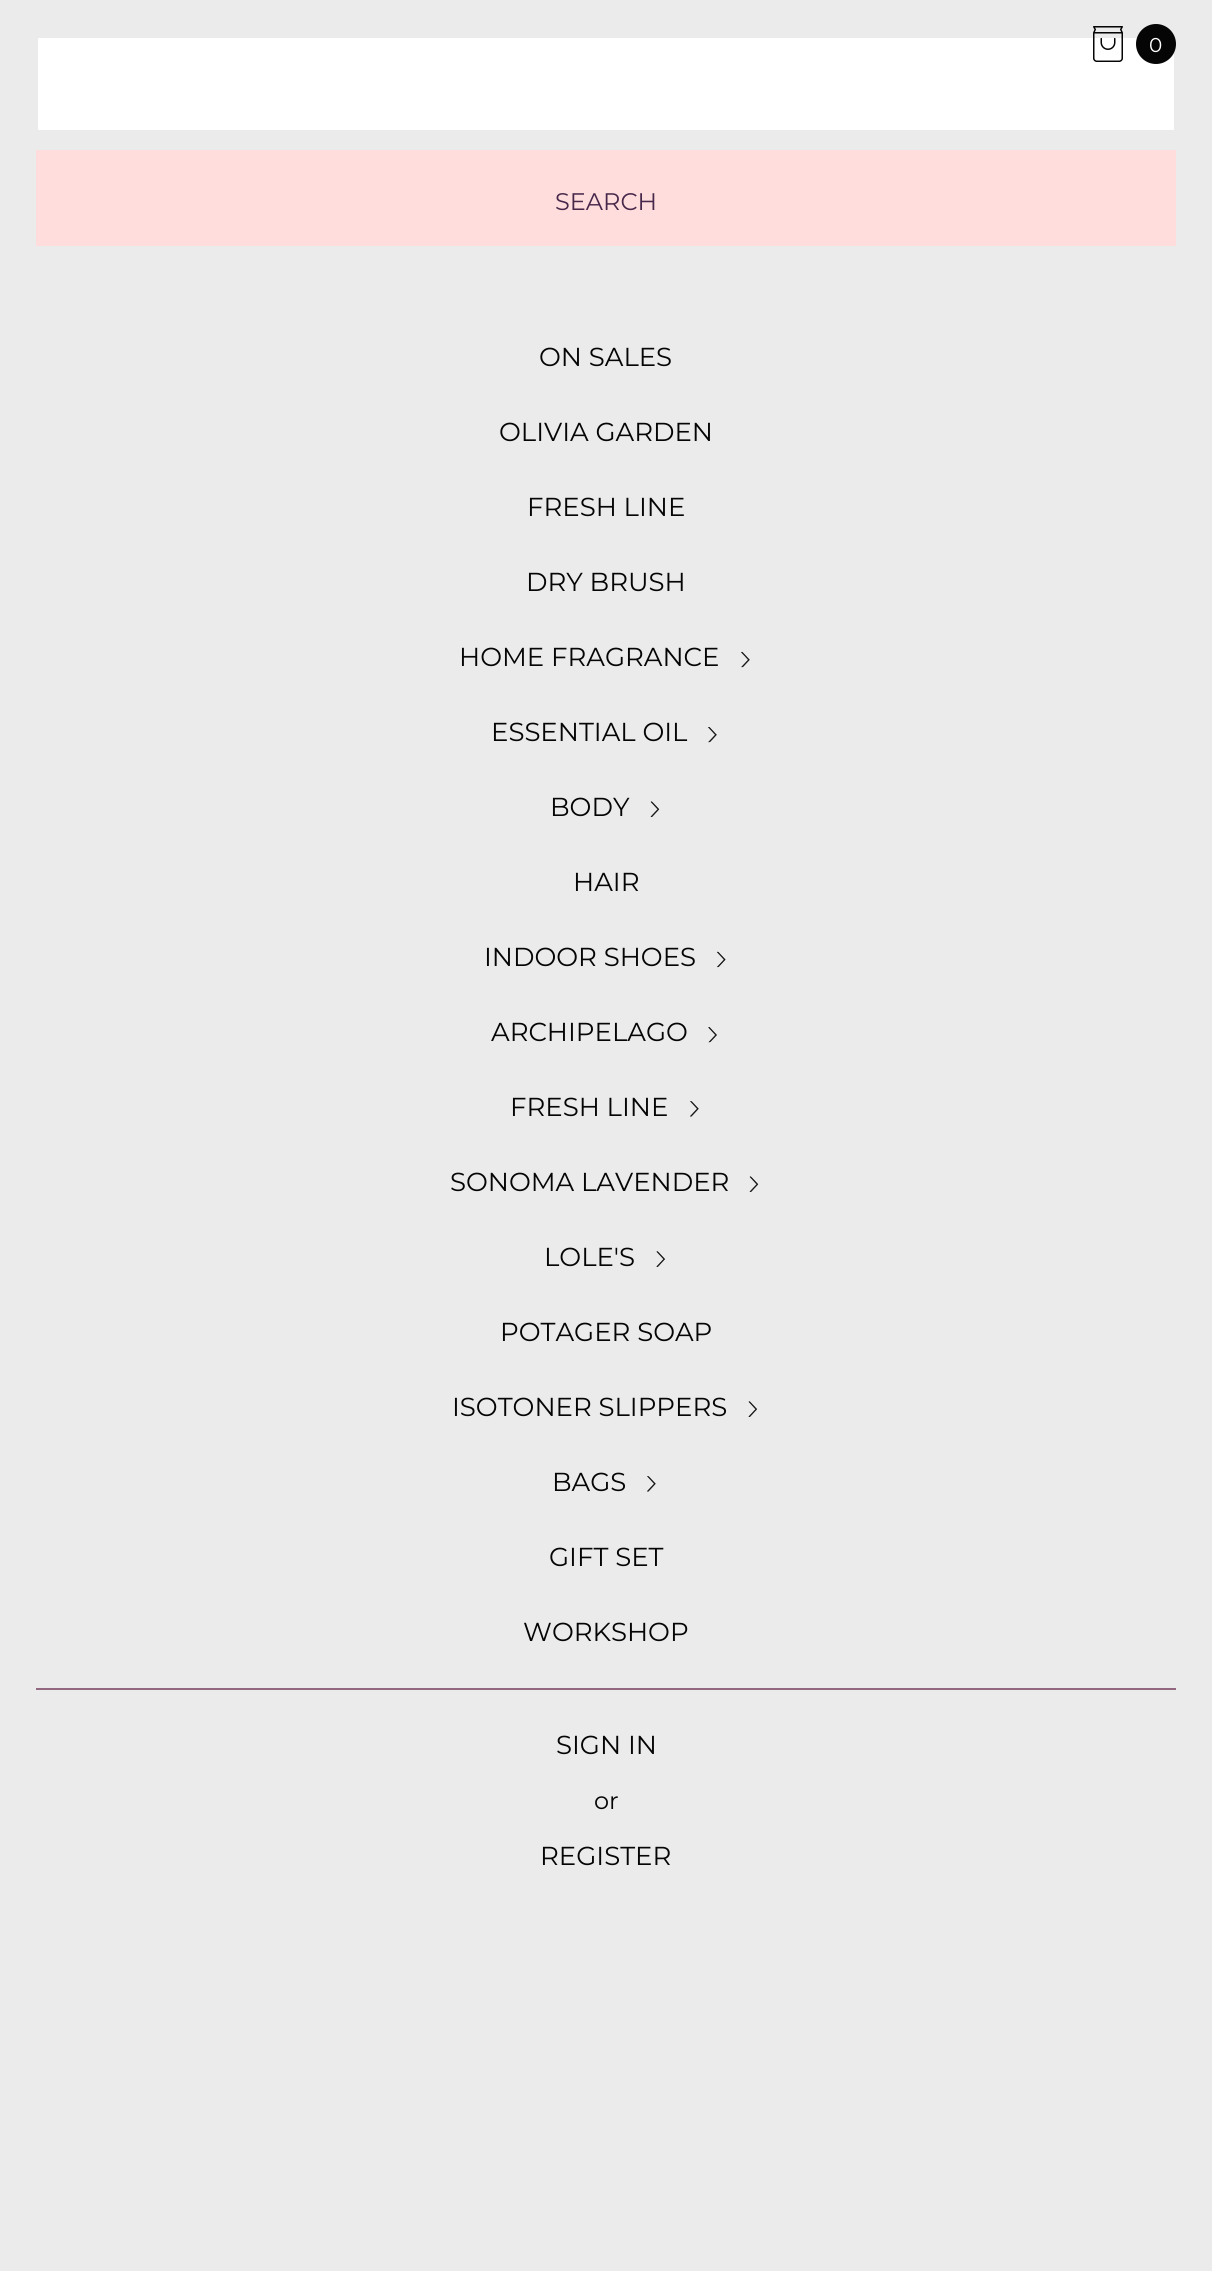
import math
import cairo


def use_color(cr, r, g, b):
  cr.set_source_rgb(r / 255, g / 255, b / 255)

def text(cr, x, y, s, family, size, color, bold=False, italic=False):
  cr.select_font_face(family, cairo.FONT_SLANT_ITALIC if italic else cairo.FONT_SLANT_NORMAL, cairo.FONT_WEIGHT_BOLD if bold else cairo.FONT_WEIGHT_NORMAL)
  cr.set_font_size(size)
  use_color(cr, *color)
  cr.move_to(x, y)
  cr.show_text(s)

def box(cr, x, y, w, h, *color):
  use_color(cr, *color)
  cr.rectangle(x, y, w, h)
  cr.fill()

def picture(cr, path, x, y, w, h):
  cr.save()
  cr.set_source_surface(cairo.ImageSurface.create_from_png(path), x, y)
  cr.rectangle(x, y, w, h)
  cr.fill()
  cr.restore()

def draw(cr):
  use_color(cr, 235, 235, 235)
  cr.paint()
  box(cr, 38, 38, 1136, 92, 255, 255, 255)
  picture(cr, "img_01.png", 1093, 26, 30, 36)
  use_color(cr, 5, 5, 5)
  cr.arc(1156, 44, 20, 0, 2 * math.pi)
  cr.fill()
  box(cr, 36, 150, 1140, 96, 255, 221, 221)
  picture(cr, "img_02.png", 741, 651, 9, 17)
  picture(cr, "img_03.png", 708, 727, 9, 16)
  picture(cr, "img_04.png", 650, 801, 10, 16)
  picture(cr, "img_05.png", 717, 951, 9, 17)
  picture(cr, "img_06.png", 708, 1027, 9, 16)
  picture(cr, "img_07.png", 690, 1101, 9, 16)
  picture(cr, "img_04.png", 749, 1176, 10, 16)
  picture(cr, "img_08.png", 656, 1251, 9, 16)
  picture(cr, "img_09.png", 748, 1401, 9, 16)
  picture(cr, "img_07.png", 647, 1476, 9, 16)
  box(cr, 36, 1688, 1140, 2, 145, 104, 128)
  text(cr, 1149, 52, "0", "Montserrat", 20, (255, 255, 255))
  text(cr, 555, 210, "SEARCH", "Montserrat", 24, (72, 40, 74))
  text(cr, 539, 366, "ON SALES", "Montserrat", 26, (5, 5, 5))
  text(cr, 499, 441, "OLIVIA GARDEN", "Montserrat", 26, (5, 5, 5))
  text(cr, 527, 516, "FRESH LINE", "Montserrat", 26, (5, 5, 5))
  text(cr, 526, 591, "DRY BRUSH", "Montserrat", 26, (5, 5, 5))
  text(cr, 459, 666, "HOME FRAGRANCE", "Montserrat", 26, (5, 5, 5))
  text(cr, 491, 741, "ESSENTIAL OIL", "Montserrat", 26, (5, 5, 5))
  text(cr, 550, 816, "BODY", "Montserrat", 26, (5, 5, 5))
  text(cr, 573, 891, "HAIR", "Montserrat", 26, (5, 5, 5))
  text(cr, 484, 966, "INDOOR SHOES", "Montserrat", 26, (5, 5, 5))
  text(cr, 491, 1041, "ARCHIPELAGO", "Montserrat", 26, (5, 5, 5))
  text(cr, 510, 1116, "FRESH LINE", "Montserrat", 26, (5, 5, 5))
  text(cr, 450, 1191, "SONOMA LAVENDER", "Montserrat", 26, (5, 5, 5))
  text(cr, 544, 1266, "LOLE'S", "Montserrat", 26, (5, 5, 5))
  text(cr, 500, 1341, "POTAGER SOAP", "Montserrat", 26, (5, 5, 5))
  text(cr, 452, 1416, "ISOTONER SLIPPERS", "Montserrat", 26, (5, 5, 5))
  text(cr, 552, 1491, "BAGS", "Montserrat", 26, (5, 5, 5))
  text(cr, 549, 1566, "GIFT SET", "Montserrat", 26, (5, 5, 5))
  text(cr, 523, 1641, "WORKSHOP", "Montserrat", 26, (5, 5, 5))
  text(cr, 556, 1754, "SIGN IN", "Montserrat", 26, (5, 5, 5))
  text(cr, 594, 1809, "or", "Montserrat", 24, (5, 5, 5))
  text(cr, 540, 1865, "REGISTER", "Montserrat", 26, (5, 5, 5))


surface = cairo.ImageSurface(cairo.FORMAT_RGB24, 1212, 2271)
cr = cairo.Context(surface)
options = cairo.FontOptions()
options.set_hint_metrics(cairo.HINT_METRICS_OFF)
options.set_hint_style(cairo.HINT_STYLE_NONE)
cr.set_font_options(options)
cr.set_miter_limit(4)
draw(cr)
surface.write_to_png("out.png")
